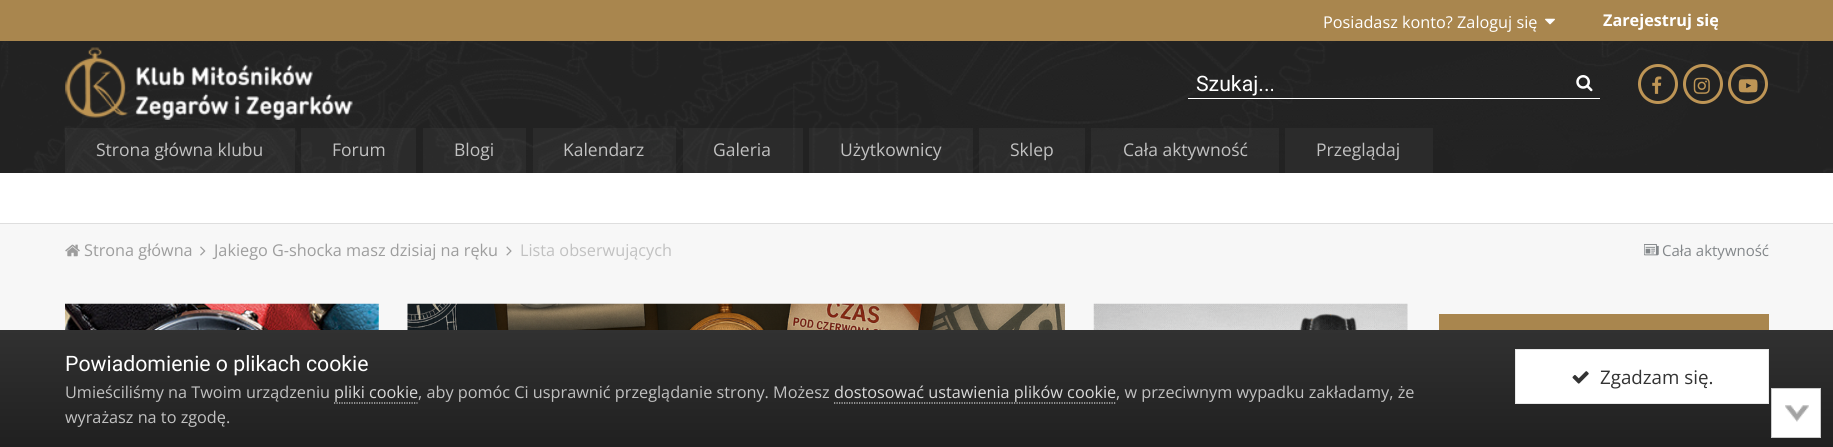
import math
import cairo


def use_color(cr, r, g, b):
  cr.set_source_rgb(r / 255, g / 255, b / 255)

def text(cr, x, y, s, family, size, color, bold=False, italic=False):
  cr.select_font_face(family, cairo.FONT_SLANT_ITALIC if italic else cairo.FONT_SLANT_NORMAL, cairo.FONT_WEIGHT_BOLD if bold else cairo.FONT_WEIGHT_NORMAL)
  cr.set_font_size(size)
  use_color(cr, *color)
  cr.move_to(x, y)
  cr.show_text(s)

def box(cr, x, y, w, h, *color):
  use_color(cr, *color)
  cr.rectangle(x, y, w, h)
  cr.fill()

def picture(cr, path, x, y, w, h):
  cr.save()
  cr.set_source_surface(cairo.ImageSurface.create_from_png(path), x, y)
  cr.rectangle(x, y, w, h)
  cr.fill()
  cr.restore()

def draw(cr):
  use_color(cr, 247, 247, 247)
  cr.paint()
  box(cr, 0, 223, 1833, 1, 222, 222, 222)
  box(cr, 0, 0, 1833, 41, 169, 134, 78)
  picture(cr, "img_01.png", 1545, 18, 10, 7)
  box(cr, 0, 41, 1833, 132, 34, 34, 34)
  picture(cr, "img_02.png", 1, 41, 1832, 132)
  picture(cr, "img_03.png", 65, 47, 288, 73)
  box(cr, 1188, 98, 412, 1, 255, 255, 255)
  picture(cr, "img_04.png", 1576, 75, 17, 17)
  cr.arc(1658, 84, 18.5, 0, 2 * math.pi)
  use_color(cr, 190, 149, 85)
  cr.set_line_width(3)
  cr.stroke()
  picture(cr, "img_05.png", 1652, 76, 10, 18)
  cr.arc(1703, 84, 18.5, 0, 2 * math.pi)
  cr.stroke()
  picture(cr, "img_06.png", 1693, 77, 17, 17)
  cr.arc(1748, 84, 18.5, 0, 2 * math.pi)
  cr.stroke()
  picture(cr, "img_07.png", 1738, 79, 20, 14)
  box(cr, 0, 173, 1833, 50, 255, 255, 255)
  cr.set_source_rgba(1, 1, 1, 0.04)
  cr.rectangle(65, 128, 230, 45)
  cr.fill()
  cr.rectangle(301, 128, 115, 45)
  cr.fill()
  cr.rectangle(423, 128, 103, 45)
  cr.fill()
  cr.rectangle(533, 128, 143, 45)
  cr.fill()
  cr.rectangle(683, 128, 120, 45)
  cr.fill()
  cr.rectangle(809, 128, 164, 45)
  cr.fill()
  cr.rectangle(979, 128, 106, 45)
  cr.fill()
  cr.rectangle(1091, 128, 188, 45)
  cr.fill()
  box(cr, 1285, 128, 148, 45, 43, 43, 43)
  picture(cr, "img_08.png", 65, 244, 15, 13)
  picture(cr, "img_09.png", 200, 246, 6, 10)
  picture(cr, "img_10.png", 506, 246, 6, 10)
  picture(cr, "img_11.png", 1644, 244, 15, 12)
  picture(cr, "img_12.png", 65, 303, 314, 27)
  picture(cr, "img_13.png", 407, 303, 658, 27)
  picture(cr, "img_14.png", 1093, 303, 315, 27)
  box(cr, 1439, 314, 330, 16, 169, 134, 78)
  gradient = cairo.LinearGradient(917, 330, 917, 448)
  gradient.add_color_stop_rgba(0, 0.192, 0.192, 0.192, 1)
  gradient.add_color_stop_rgba(1, 0.125, 0.125, 0.125, 1)
  cr.set_source(gradient)
  cr.rectangle(0, 330, 1833, 117)
  cr.fill()
  cr.new_path()
  cr.move_to(334, 403)
  cr.line_to(417.5, 403)
  use_color(cr, 218, 218, 218)
  cr.set_line_width(1.2)
  cr.set_dash([1.25, 1.25])
  cr.stroke()
  cr.new_path()
  cr.move_to(834, 403)
  cr.line_to(1116, 403)
  cr.stroke()
  use_color(cr, 255, 255, 255)
  cr.rectangle(1515.5, 349.5, 253, 54)
  cr.fill_preserve()
  use_color(cr, 232, 232, 232)
  cr.set_line_width(1)
  cr.set_dash([])
  cr.stroke()
  picture(cr, "img_15.png", 1572, 371, 17, 13)
  box(cr, 1772, 389, 48, 48, 255, 255, 255)
  picture(cr, "img_16.png", 1785, 405, 24, 17)
  cr.rectangle(1771.5, 388.5, 49, 49)
  use_color(cr, 204, 204, 204)
  cr.stroke()
  text(cr, 1323, 28, "Posiadasz konto? Zaloguj się", "Open Sans", 16.25, (255, 255, 255))
  text(cr, 1603, 26, "Zarejestruj się", "Open Sans", 16.25, (255, 255, 255), bold=True)
  text(cr, 1196, 91, "Szukaj...", "Roboto", 21.25, (255, 255, 255))
  text(cr, 96, 156, "Strona główna klubu", "Open Sans", 17.5, (193, 193, 193))
  text(cr, 332, 156, "Forum", "Open Sans", 17.5, (193, 193, 193))
  text(cr, 454, 156, "Blogi", "Open Sans", 17.5, (193, 193, 193))
  text(cr, 563, 156, "Kalendarz", "Open Sans", 17.5, (193, 193, 193))
  text(cr, 713, 156, "Galeria", "Open Sans", 17.5, (193, 193, 193))
  text(cr, 840, 156, "Użytkownicy", "Open Sans", 17.5, (193, 193, 193))
  text(cr, 1010, 156, "Sklep", "Open Sans", 17.5, (193, 193, 193))
  text(cr, 1123, 156, "Cała aktywność", "Open Sans", 17.5, (193, 193, 193))
  text(cr, 1316, 156, "Przeglądaj", "Open Sans", 17.5, (193, 193, 193))
  text(cr, 84, 256, "Strona główna", "Open Sans", 16.25, (157, 157, 157))
  text(cr, 214, 256, "Jakiego G-shocka masz dzisiaj na ręku", "Open Sans", 16.25, (157, 157, 157))
  text(cr, 520, 256, "Lista obserwujących", "Open Sans", 16.25, (193, 193, 193))
  text(cr, 1662, 256, "Cała aktywność", "Open Sans", 15, (131, 135, 138))
  text(cr, 65, 371, "Powiadomienie o plikach cookie", "Roboto", 21.25, (255, 255, 255))
  text(cr, 65, 398, "Umieściliśmy na Twoim urządzeniu", "Open Sans", 16.25, (193, 193, 193))
  text(cr, 334, 398, "pliki cookie", "Open Sans", 16.25, (218, 218, 218))
  text(cr, 418, 398, ", aby pomóc Ci usprawnić przeglądanie strony. Możesz", "Open Sans", 16.25, (193, 193, 193))
  text(cr, 834, 398, "dostosować ustawienia plików cookie", "Open Sans", 16.25, (218, 218, 218))
  text(cr, 1116, 398, ", w przeciwnym wypadku zakładamy, że", "Open Sans", 16.25, (193, 193, 193))
  text(cr, 65, 423, "wyrażasz na to zgodę.", "Open Sans", 16.25, (193, 193, 193))
  text(cr, 1600, 384, "Zgadzam się.", "Open Sans", 18.75, (51, 51, 51))


surface = cairo.ImageSurface(cairo.FORMAT_RGB24, 1833, 447)
cr = cairo.Context(surface)
options = cairo.FontOptions()
options.set_hint_metrics(cairo.HINT_METRICS_OFF)
options.set_hint_style(cairo.HINT_STYLE_NONE)
cr.set_font_options(options)
cr.set_miter_limit(4)
draw(cr)
surface.write_to_png("out.png")
